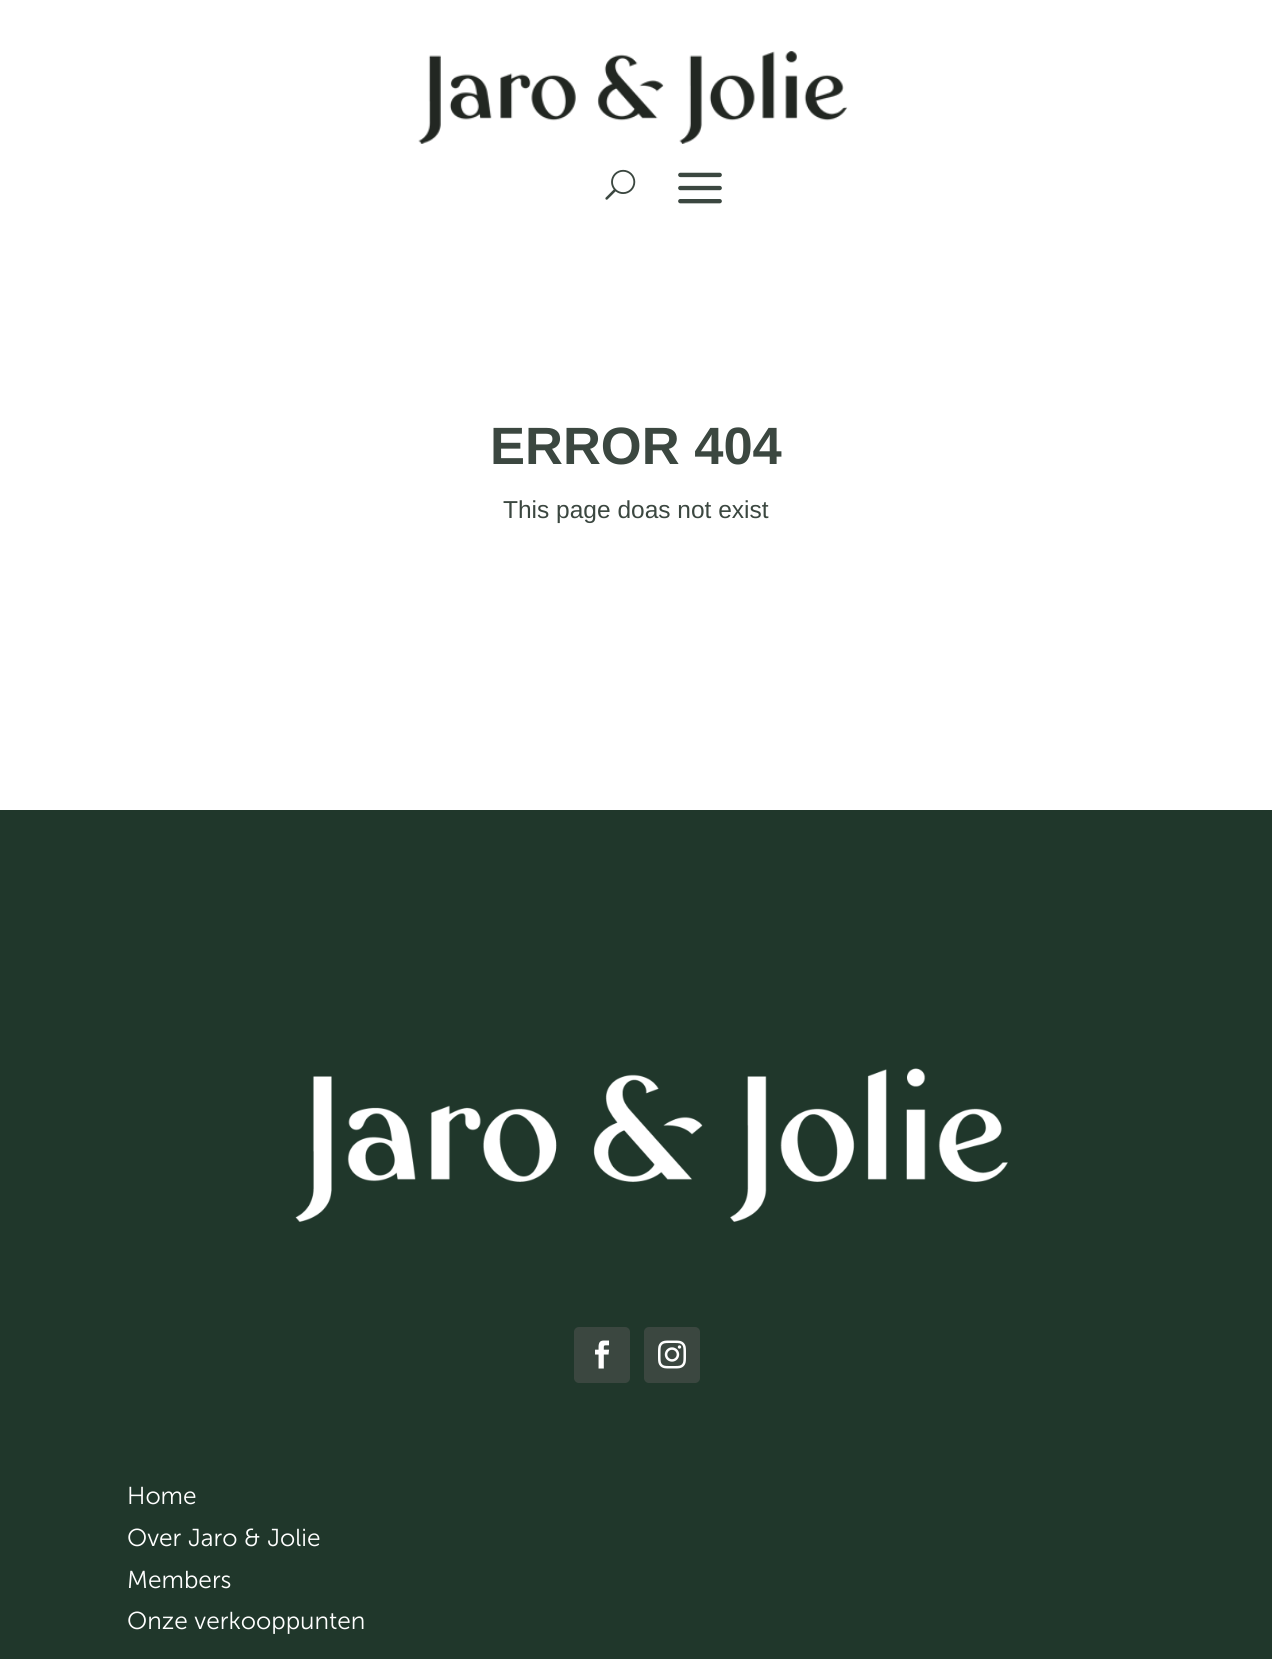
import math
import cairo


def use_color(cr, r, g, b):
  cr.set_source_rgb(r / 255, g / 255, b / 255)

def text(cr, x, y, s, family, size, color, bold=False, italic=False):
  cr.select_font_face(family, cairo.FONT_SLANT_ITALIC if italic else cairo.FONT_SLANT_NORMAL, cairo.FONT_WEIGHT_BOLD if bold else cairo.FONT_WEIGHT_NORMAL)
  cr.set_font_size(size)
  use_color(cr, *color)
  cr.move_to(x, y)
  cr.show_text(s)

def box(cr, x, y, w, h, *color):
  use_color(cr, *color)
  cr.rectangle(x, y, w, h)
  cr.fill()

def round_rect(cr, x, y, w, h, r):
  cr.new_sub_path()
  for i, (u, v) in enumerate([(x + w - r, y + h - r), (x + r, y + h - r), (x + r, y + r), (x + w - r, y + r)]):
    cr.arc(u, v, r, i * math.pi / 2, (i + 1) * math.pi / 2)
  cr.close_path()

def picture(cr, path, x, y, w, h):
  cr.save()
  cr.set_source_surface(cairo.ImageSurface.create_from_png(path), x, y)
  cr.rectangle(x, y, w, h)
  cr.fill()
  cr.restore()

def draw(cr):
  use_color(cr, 255, 255, 255)
  cr.paint()
  picture(cr, "img_01.png", 418, 51, 430, 93)
  picture(cr, "img_02.png", 605, 169, 31, 31)
  picture(cr, "img_03.png", 678, 172, 44, 32)
  box(cr, 0, 810, 1272, 849, 32, 55, 43)
  picture(cr, "img_04.png", 295, 1068, 713, 154)
  use_color(cr, 59, 71, 64)
  round_rect(cr, 574, 1327, 56, 56, 5)
  cr.fill()
  picture(cr, "img_05.png", 595, 1340, 15, 29)
  round_rect(cr, 644, 1327, 56, 56, 5)
  cr.fill()
  picture(cr, "img_06.png", 658, 1340, 28, 29)
  text(cr, 490, 464, "ERROR 404", "Liberation Sans", 52.5, (59, 71, 64), bold=True)
  text(cr, 503, 518, "This page doas not exist", "Liberation Sans", 24.5, (59, 71, 64))
  text(cr, 127, 1504, "Home", "Museo Sans Light", 24.5, (255, 255, 255))
  text(cr, 127, 1546, "Over Jaro & Jolie", "Museo Sans Light", 24.5, (255, 255, 255))
  text(cr, 127, 1588, "Members", "Museo Sans Light", 24.5, (255, 255, 255))
  text(cr, 127, 1629, "Onze verkooppunten", "Museo Sans Light", 24.5, (255, 255, 255))


surface = cairo.ImageSurface(cairo.FORMAT_RGB24, 1272, 1659)
cr = cairo.Context(surface)
options = cairo.FontOptions()
options.set_hint_metrics(cairo.HINT_METRICS_OFF)
options.set_hint_style(cairo.HINT_STYLE_NONE)
cr.set_font_options(options)
cr.set_miter_limit(4)
draw(cr)
surface.write_to_png("out.png")
